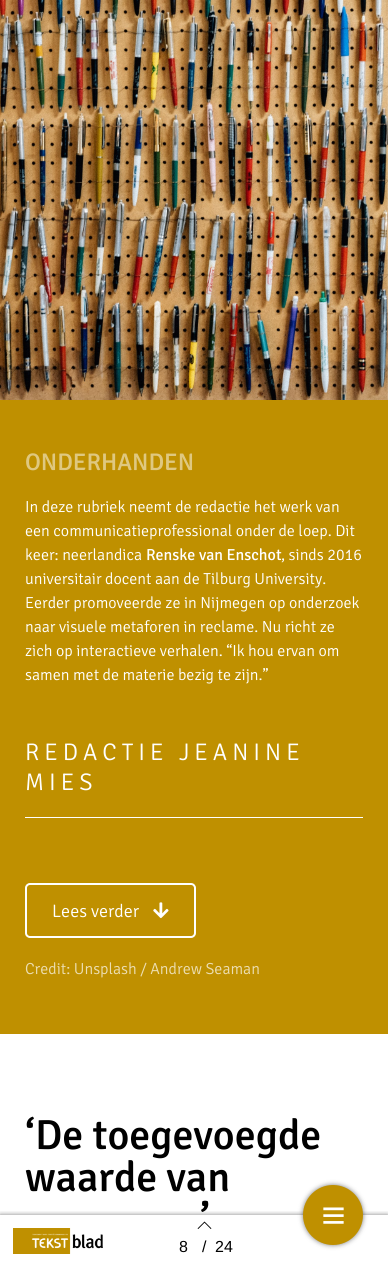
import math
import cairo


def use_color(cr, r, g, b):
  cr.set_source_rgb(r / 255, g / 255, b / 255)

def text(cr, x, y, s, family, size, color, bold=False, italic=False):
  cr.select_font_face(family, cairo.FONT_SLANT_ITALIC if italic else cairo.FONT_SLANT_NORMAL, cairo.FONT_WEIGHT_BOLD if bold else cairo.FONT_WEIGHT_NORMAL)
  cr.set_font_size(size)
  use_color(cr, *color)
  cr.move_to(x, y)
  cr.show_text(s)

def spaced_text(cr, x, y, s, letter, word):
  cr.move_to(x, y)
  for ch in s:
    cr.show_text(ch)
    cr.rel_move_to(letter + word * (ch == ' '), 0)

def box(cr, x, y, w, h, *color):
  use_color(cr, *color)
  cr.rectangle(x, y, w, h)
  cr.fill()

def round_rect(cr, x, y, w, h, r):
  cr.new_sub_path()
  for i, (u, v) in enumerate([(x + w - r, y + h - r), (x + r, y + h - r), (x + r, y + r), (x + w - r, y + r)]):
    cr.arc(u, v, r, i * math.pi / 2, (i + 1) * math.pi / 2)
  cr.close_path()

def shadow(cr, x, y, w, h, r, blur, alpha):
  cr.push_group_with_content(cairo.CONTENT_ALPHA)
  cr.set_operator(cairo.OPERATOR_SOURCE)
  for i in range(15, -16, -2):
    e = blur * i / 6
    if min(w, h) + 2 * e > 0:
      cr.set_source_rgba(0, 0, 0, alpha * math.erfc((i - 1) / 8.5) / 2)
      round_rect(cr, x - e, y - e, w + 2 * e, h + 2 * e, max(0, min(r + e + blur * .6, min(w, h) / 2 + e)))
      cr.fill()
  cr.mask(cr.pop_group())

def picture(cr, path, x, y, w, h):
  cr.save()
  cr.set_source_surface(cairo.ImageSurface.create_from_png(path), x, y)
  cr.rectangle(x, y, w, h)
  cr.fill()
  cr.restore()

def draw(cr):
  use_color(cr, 255, 255, 255)
  cr.paint()
  picture(cr, "img_01.png", 0, 0, 388, 400)
  box(cr, 0, 400, 388, 634, 191, 144, 0)
  box(cr, 25, 817, 338, 1, 255, 255, 255)
  round_rect(cr, 26, 884, 169, 53, 4)
  cr.stroke()
  picture(cr, "img_02.png", 153, 902, 16, 17)
  cr.save()
  cr.rectangle(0, 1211, 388, 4)
  cr.clip()
  use_color(cr, 0, 0, 0)
  shadow(cr, 0, 1215, 388, 50, 0, 2.5, 0.5)
  cr.restore()
  picture(cr, "img_03.png", 13, 1228, 90, 26)
  picture(cr, "img_04.png", 197, 1221, 15, 8)
  use_color(cr, 0, 0, 0)
  shadow(cr, 303, 1185, 60, 60, 30, 2.5, 0.5)
  use_color(cr, 191, 144, 0)
  cr.arc(333, 1215, 30, 0, 2 * math.pi)
  cr.fill()
  picture(cr, "img_05.png", 323, 1207, 21, 17)
  text(cr, 25, 470, "ONDERHANDEN", "Signika Medium", 24, (223, 200, 128))
  text(cr, 25, 512, "In deze rubriek neemt de redactie het werk van", "Signika Light", 16, (255, 255, 255))
  text(cr, 25, 536, "een communicatieprofessional onder de loep. Dit", "Signika Light", 16, (255, 255, 255))
  text(cr, 25, 560, "keer: neerlandica", "Signika Light", 16, (255, 255, 255))
  text(cr, 146, 560, "Renske van Enschot", "Signika", 16, (255, 255, 255))
  text(cr, 281, 560, ", sinds 2016", "Signika Light", 16, (255, 255, 255))
  text(cr, 25, 584, "universitair docent aan de Tilburg University.", "Signika Light", 16, (255, 255, 255))
  text(cr, 25, 608, "Eerder promoveerde ze in Nijmegen op onderzoek", "Signika Light", 16, (255, 255, 255))
  text(cr, 25, 632, "naar visuele metaforen in reclame. Nu richt ze", "Signika Light", 16, (255, 255, 255))
  text(cr, 25, 656, "zich op interactieve verhalen. “Ik hou ervan om", "Signika Light", 16, (255, 255, 255))
  text(cr, 25, 680, "samen met de materie bezig te zijn.”", "Signika Light", 16, (255, 255, 255))
  cr.set_font_size(24)
  spaced_text(cr, 25, 760, "REDACTIE JEANINE", 5, 0)
  spaced_text(cr, 25, 790, "MIES", 5, 0)
  text(cr, 52, 917, "Lees verder", "Signika Light", 18, (255, 255, 255))
  text(cr, 25, 974, "Credit: Unsplash / Andrew Seaman", "Signika Light", 16, (236, 222, 179))
  text(cr, 25, 1149, "‘De toegevoegde", "Signika Medium", 42, (0, 0, 0))
  text(cr, 25, 1191, "waarde van", "Signika Medium", 42, (0, 0, 0))
  text(cr, 200, 1233, "’", "Signika Medium", 42, (0, 0, 0))
  text(cr, 179, 1252, "8", "Liberation Sans", 16, (0, 0, 0))
  text(cr, 202, 1252, "/", "Liberation Sans", 16, (0, 0, 0))
  text(cr, 215, 1252, "24", "Liberation Sans", 16, (0, 0, 0))


surface = cairo.ImageSurface(cairo.FORMAT_RGB24, 388, 1265)
cr = cairo.Context(surface)
options = cairo.FontOptions()
options.set_hint_metrics(cairo.HINT_METRICS_OFF)
options.set_hint_style(cairo.HINT_STYLE_NONE)
cr.set_font_options(options)
cr.set_miter_limit(4)
draw(cr)
surface.write_to_png("out.png")
